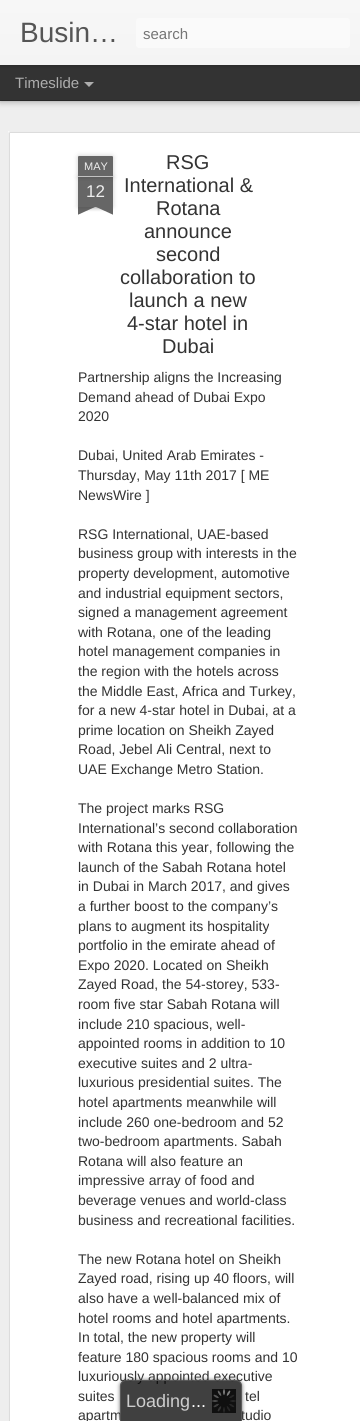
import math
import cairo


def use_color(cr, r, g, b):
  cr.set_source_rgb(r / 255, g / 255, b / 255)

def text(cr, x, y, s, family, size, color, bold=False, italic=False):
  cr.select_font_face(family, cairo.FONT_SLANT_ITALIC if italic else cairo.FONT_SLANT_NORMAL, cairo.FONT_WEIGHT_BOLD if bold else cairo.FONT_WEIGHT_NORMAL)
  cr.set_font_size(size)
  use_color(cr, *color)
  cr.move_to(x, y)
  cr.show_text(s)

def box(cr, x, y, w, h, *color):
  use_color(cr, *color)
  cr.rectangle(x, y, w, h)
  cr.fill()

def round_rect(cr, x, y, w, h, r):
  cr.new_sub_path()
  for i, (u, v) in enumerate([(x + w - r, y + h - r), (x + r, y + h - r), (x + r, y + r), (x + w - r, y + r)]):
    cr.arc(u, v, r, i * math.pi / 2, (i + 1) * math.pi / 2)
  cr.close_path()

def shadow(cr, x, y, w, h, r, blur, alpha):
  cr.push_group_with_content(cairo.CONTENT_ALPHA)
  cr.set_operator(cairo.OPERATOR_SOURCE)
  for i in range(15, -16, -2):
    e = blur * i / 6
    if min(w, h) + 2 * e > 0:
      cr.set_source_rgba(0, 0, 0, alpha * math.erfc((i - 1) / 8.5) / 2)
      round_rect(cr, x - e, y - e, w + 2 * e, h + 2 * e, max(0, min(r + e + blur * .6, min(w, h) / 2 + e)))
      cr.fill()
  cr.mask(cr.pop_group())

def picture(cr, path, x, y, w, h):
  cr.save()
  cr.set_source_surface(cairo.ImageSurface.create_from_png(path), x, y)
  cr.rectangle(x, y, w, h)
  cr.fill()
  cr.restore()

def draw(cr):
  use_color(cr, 51, 51, 51)
  cr.paint()
  box(cr, 0, 101, 360, 1320, 238, 238, 238)
  use_color(cr, 0, 0, 0)
  shadow(cr, 0, 65, 360, 35, 0, 4, 0.5)
  box(cr, 0, 65, 360, 35, 51, 51, 51)
  use_color(cr, 0, 0, 0)
  shadow(cr, 0, 0, 360, 65, 0, 2.5, 0.3)
  gradient = cairo.LinearGradient(0, 0, 0, 65)
  gradient.add_color_stop_rgba(0, 0.969, 0.969, 0.969, 1)
  gradient.add_color_stop_rgba(1, 0.957, 0.957, 0.957, 1)
  cr.set_source(gradient)
  cr.rectangle(0, 0, 360, 65)
  cr.fill()
  use_color(cr, 250, 250, 250)
  round_rect(cr, 136, 18, 214, 30, 3)
  cr.fill()
  use_color(cr, 173, 173, 173)
  cr.new_path()
  cr.move_to(84, 82)
  cr.line_to(94, 82)
  cr.line_to(89, 87)
  cr.close_path()
  cr.fill()
  box(cr, 8, 131, 352, 1290, 255, 255, 255)
  picture(cr, "img_01.png", 8, 131, 352, 1290)
  use_color(cr, 0, 0, 0)
  shadow(cr, 78, 177, 35, 30, 0, 2.5, 0.2)
  box(cr, 78, 177, 35, 30, 102, 102, 102)
  use_color(cr, 0, 0, 0)
  shadow(cr, 78, 156, 35, 21, 1, 2.5, 0.2)
  use_color(cr, 102, 102, 102)
  cr.new_path()
  cr.move_to(79, 156)
  cr.line_to(112, 156)
  cr.curve_to(112.5, 156, 113, 156.5, 113, 157)
  cr.line_to(113, 177)
  cr.line_to(78, 177)
  cr.line_to(78, 157)
  cr.curve_to(78, 156.5, 78.5, 156, 79, 156)
  cr.close_path()
  cr.fill()
  box(cr, 78, 176, 35, 1, 194, 194, 194)
  cr.save()
  cr.rectangle(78, 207, 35, 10)
  cr.clip()
  use_color(cr, 0, 0, 0)
  shadow(cr, 69, 197, 50, 10, 0, 2.5, 0.2)
  cr.restore()
  cr.save()
  cr.rectangle(78, 207, 35, 10)
  cr.clip()
  use_color(cr, 102, 102, 102)
  cr.new_path()
  cr.move_to(69, 208)
  cr.line_to(115, 187)
  cr.line_to(119, 196)
  cr.line_to(73, 217)
  cr.close_path()
  cr.fill()
  cr.restore()
  cr.save()
  cr.rectangle(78, 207, 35, 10)
  cr.clip()
  use_color(cr, 0, 0, 0)
  shadow(cr, 72, 197, 50, 10, 0, 2.5, 0.2)
  cr.restore()
  cr.save()
  cr.rectangle(78, 207, 35, 10)
  cr.clip()
  use_color(cr, 102, 102, 102)
  cr.new_path()
  cr.move_to(76, 187)
  cr.line_to(122, 208)
  cr.line_to(118, 217)
  cr.line_to(72, 196)
  cr.close_path()
  cr.fill()
  cr.restore()
  cr.save()
  cr.set_fill_rule(cairo.FILL_RULE_EVEN_ODD)
  cr.new_path()
  cr.move_to(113, 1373)
  cr.line_to(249, 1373)
  cr.line_to(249, 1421)
  cr.line_to(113, 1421)
  cr.close_path()
  cr.move_to(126, 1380)
  cr.line_to(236, 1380)
  cr.curve_to(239.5, 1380, 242, 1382.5, 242, 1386)
  cr.line_to(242, 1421)
  cr.line_to(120, 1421)
  cr.line_to(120, 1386)
  cr.curve_to(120, 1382.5, 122.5, 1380, 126, 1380)
  cr.close_path()
  cr.clip()
  use_color(cr, 51, 51, 51)
  shadow(cr, 120, 1380, 122, 41, 6, 2, 0.75)
  cr.restore()
  text(cr, 20, 42, "Busin…", "Liberation Sans", 28, (85, 85, 85))
  text(cr, 143, 39, "search", "Liberation Sans", 15, (117, 117, 117))
  text(cr, 15, 88, "Timeslide", "Liberation Sans", 15, (173, 173, 173))
  text(cr, 84, 170, "MAY", "Liberation Sans", 11, (238, 238, 238))
  text(cr, 86, 197, "12", "Liberation Sans", 17, (238, 238, 238))
  text(cr, 166, 169, "RSG", "Liberation Sans", 20, (51, 51, 51))
  text(cr, 124, 192, "International &", "Liberation Sans", 20, (51, 51, 51))
  text(cr, 156, 215, "Rotana", "Liberation Sans", 20, (51, 51, 51))
  text(cr, 144, 238, "announce", "Liberation Sans", 20, (51, 51, 51))
  text(cr, 156, 261, "second", "Liberation Sans", 20, (51, 51, 51))
  text(cr, 120, 284, "collaboration to", "Liberation Sans", 20, (51, 51, 51))
  text(cr, 129, 307, "launch a new", "Liberation Sans", 20, (51, 51, 51))
  text(cr, 127, 330, "4-star hotel in", "Liberation Sans", 20, (51, 51, 51))
  text(cr, 162, 353, "Dubai", "Liberation Sans", 20, (51, 51, 51))
  text(cr, 78, 382, "Partnership aligns the Increasing", "Liberation Sans", 14, (51, 51, 51))
  text(cr, 78, 402, "Demand ahead of Dubai Expo", "Liberation Sans", 14, (51, 51, 51))
  text(cr, 78, 421, "2020", "Liberation Sans", 14, (51, 51, 51))
  text(cr, 78, 460, "Dubai, United Arab Emirates -", "Liberation Sans", 14, (51, 51, 51))
  text(cr, 78, 480, "Thursday, May 11th 2017 [ ME", "Liberation Sans", 14, (51, 51, 51))
  text(cr, 78, 500, "NewsWire ]", "Liberation Sans", 14, (51, 51, 51))
  text(cr, 78, 539, "RSG International, UAE-based", "Liberation Sans", 14, (51, 51, 51))
  text(cr, 78, 558, "business group with interests in the", "Liberation Sans", 14, (51, 51, 51))
  text(cr, 78, 578, "property development, automotive", "Liberation Sans", 14, (51, 51, 51))
  text(cr, 78, 598, "and industrial equipment sectors,", "Liberation Sans", 14, (51, 51, 51))
  text(cr, 78, 617, "signed a management agreement", "Liberation Sans", 14, (51, 51, 51))
  text(cr, 78, 637, "with Rotana, one of the leading", "Liberation Sans", 14, (51, 51, 51))
  text(cr, 78, 656, "hotel management companies in", "Liberation Sans", 14, (51, 51, 51))
  text(cr, 78, 676, "the region with the hotels across", "Liberation Sans", 14, (51, 51, 51))
  text(cr, 78, 696, "the Middle East, Africa and Turkey,", "Liberation Sans", 14, (51, 51, 51))
  text(cr, 78, 715, "for a new 4-star hotel in Dubai, at a", "Liberation Sans", 14, (51, 51, 51))
  text(cr, 78, 735, "prime location on Sheikh Zayed", "Liberation Sans", 14, (51, 51, 51))
  text(cr, 78, 754, "Road, Jebel Ali Central, next to", "Liberation Sans", 14, (51, 51, 51))
  text(cr, 78, 774, "UAE Exchange Metro Station.", "Liberation Sans", 14, (51, 51, 51))
  text(cr, 78, 813, "The project marks RSG", "Liberation Sans", 14, (51, 51, 51))
  text(cr, 78, 833, "International’s second collaboration", "Liberation Sans", 14, (51, 51, 51))
  text(cr, 78, 852, "with Rotana this year, following the", "Liberation Sans", 14, (51, 51, 51))
  text(cr, 78, 872, "launch of the Sabah Rotana hotel", "Liberation Sans", 14, (51, 51, 51))
  text(cr, 78, 891, "in Dubai in March 2017, and gives", "Liberation Sans", 14, (51, 51, 51))
  text(cr, 78, 911, "a further boost to the company’s", "Liberation Sans", 14, (51, 51, 51))
  text(cr, 78, 931, "plans to augment its hospitality", "Liberation Sans", 14, (51, 51, 51))
  text(cr, 78, 950, "portfolio in the emirate ahead of", "Liberation Sans", 14, (51, 51, 51))
  text(cr, 78, 970, "Expo 2020. Located on Sheikh", "Liberation Sans", 14, (51, 51, 51))
  text(cr, 78, 989, "Zayed Road, the 54-storey, 533-", "Liberation Sans", 14, (51, 51, 51))
  text(cr, 78, 1009, "room five star Sabah Rotana will", "Liberation Sans", 14, (51, 51, 51))
  text(cr, 78, 1029, "include 210 spacious, well-", "Liberation Sans", 14, (51, 51, 51))
  text(cr, 78, 1048, "appointed rooms in addition to 10", "Liberation Sans", 14, (51, 51, 51))
  text(cr, 78, 1068, "executive suites and 2 ultra-", "Liberation Sans", 14, (51, 51, 51))
  text(cr, 78, 1087, "luxurious presidential suites. The", "Liberation Sans", 14, (51, 51, 51))
  text(cr, 78, 1107, "hotel apartments meanwhile will", "Liberation Sans", 14, (51, 51, 51))
  text(cr, 78, 1127, "include 260 one-bedroom and 52", "Liberation Sans", 14, (51, 51, 51))
  text(cr, 78, 1146, "two-bedroom apartments. Sabah", "Liberation Sans", 14, (51, 51, 51))
  text(cr, 78, 1166, "Rotana will also feature an", "Liberation Sans", 14, (51, 51, 51))
  text(cr, 78, 1185, "impressive array of food and", "Liberation Sans", 14, (51, 51, 51))
  text(cr, 78, 1205, "beverage venues and world-class", "Liberation Sans", 14, (51, 51, 51))
  text(cr, 78, 1225, "business and recreational facilities.", "Liberation Sans", 14, (51, 51, 51))
  text(cr, 78, 1264, "The new Rotana hotel on Sheikh", "Liberation Sans", 14, (51, 51, 51))
  text(cr, 78, 1283, "Zayed road, rising up 40 floors, will", "Liberation Sans", 14, (51, 51, 51))
  text(cr, 78, 1303, "also have a well-balanced mix of", "Liberation Sans", 14, (51, 51, 51))
  text(cr, 78, 1323, "hotel rooms and hotel apartments.", "Liberation Sans", 14, (51, 51, 51))
  text(cr, 78, 1342, "In total, the new property will", "Liberation Sans", 14, (51, 51, 51))
  text(cr, 78, 1362, "feature 180 spacious rooms and 10", "Liberation Sans", 14, (51, 51, 51))
  text(cr, 78, 1381, "luxuriously appointed executive", "Liberation Sans", 14, (51, 51, 51))
  text(cr, 78, 1401, "suites", "Liberation Sans", 14, (51, 51, 51))
  text(cr, 245, 1401, "tel", "Liberation Sans", 14, (51, 51, 51))
  text(cr, 78, 1420, "apartm", "Liberation Sans", 14, (51, 51, 51))
  text(cr, 241, 1420, "tudio", "Liberation Sans", 14, (51, 51, 51))
  cr.set_source_rgba(0, 0, 0, 0.75)
  cr.new_path()
  cr.move_to(126, 1380)
  cr.line_to(236, 1380)
  cr.curve_to(239.5, 1380, 242, 1382.5, 242, 1386)
  cr.line_to(242, 1421)
  cr.line_to(120, 1421)
  cr.line_to(120, 1386)
  cr.curve_to(120, 1382.5, 122.5, 1380, 126, 1380)
  cr.close_path()
  cr.fill()
  cr.set_source_rgba(0.4, 0.4, 0.4, 0.75)
  cr.set_fill_rule(cairo.FILL_RULE_EVEN_ODD)
  cr.new_path()
  cr.move_to(126, 1380)
  cr.line_to(236, 1380)
  cr.curve_to(239, 1380, 242, 1383, 242, 1386)
  cr.line_to(242, 1421)
  cr.line_to(120, 1421)
  cr.line_to(120, 1386)
  cr.curve_to(120, 1383, 123, 1380, 126, 1380)
  cr.close_path()
  cr.move_to(126, 1381)
  cr.line_to(236, 1381)
  cr.curve_to(239, 1381, 241, 1383, 241, 1386)
  cr.line_to(241, 1421)
  cr.line_to(121, 1421)
  cr.line_to(121, 1386)
  cr.curve_to(121, 1383, 123, 1381, 126, 1381)
  cr.close_path()
  cr.fill()
  picture(cr, "img_02.png", 212, 1389, 24, 24)
  text(cr, 126, 1407, "Loading", "Liberation Sans", 18, (205, 205, 205))
  text(cr, 191, 1407, "...", "Liberation Sans", 18, (255, 255, 255))


surface = cairo.ImageSurface(cairo.FORMAT_RGB24, 360, 1421)
cr = cairo.Context(surface)
options = cairo.FontOptions()
options.set_hint_metrics(cairo.HINT_METRICS_OFF)
options.set_hint_style(cairo.HINT_STYLE_NONE)
cr.set_font_options(options)
cr.set_miter_limit(4)
draw(cr)
surface.write_to_png("out.png")
